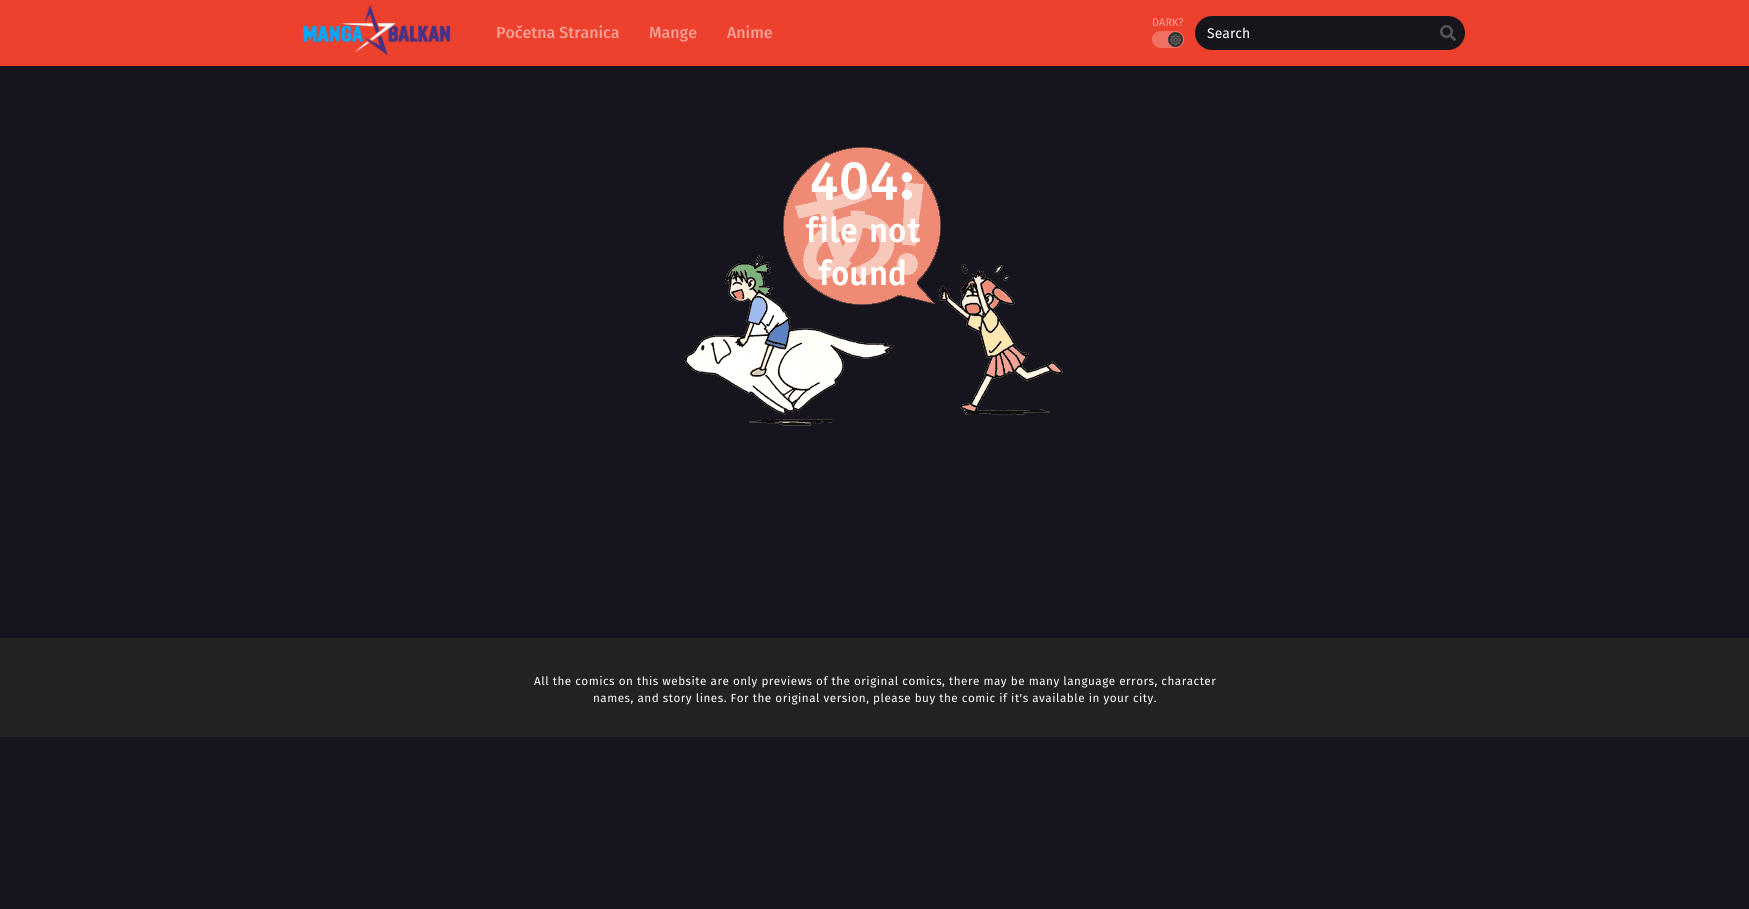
import math
import cairo


def use_color(cr, r, g, b):
  cr.set_source_rgb(r / 255, g / 255, b / 255)

def text(cr, x, y, s, family, size, color, bold=False, italic=False):
  cr.select_font_face(family, cairo.FONT_SLANT_ITALIC if italic else cairo.FONT_SLANT_NORMAL, cairo.FONT_WEIGHT_BOLD if bold else cairo.FONT_WEIGHT_NORMAL)
  cr.set_font_size(size)
  use_color(cr, *color)
  cr.move_to(x, y)
  cr.show_text(s)

def spaced_text(cr, x, y, s, letter, word):
  cr.move_to(x, y)
  for ch in s:
    cr.show_text(ch)
    cr.rel_move_to(letter + word * (ch == ' '), 0)

def box(cr, x, y, w, h, *color):
  use_color(cr, *color)
  cr.rectangle(x, y, w, h)
  cr.fill()

def round_rect(cr, x, y, w, h, r):
  cr.new_sub_path()
  for i, (u, v) in enumerate([(x + w - r, y + h - r), (x + r, y + h - r), (x + r, y + r), (x + w - r, y + r)]):
    cr.arc(u, v, r, i * math.pi / 2, (i + 1) * math.pi / 2)
  cr.close_path()

def picture(cr, path, x, y, w, h):
  cr.save()
  cr.set_source_surface(cairo.ImageSurface.create_from_png(path), x, y)
  cr.rectangle(x, y, w, h)
  cr.fill()
  cr.restore()

def draw(cr):
  use_color(cr, 22, 21, 29)
  cr.paint()
  box(cr, 0, 0, 1749, 66, 237, 64, 45)
  picture(cr, "img_01.png", 302, 5, 149, 50)
  use_color(cr, 242, 112, 98)
  round_rect(cr, 1152, 31, 32, 17, 8.5)
  cr.fill()
  use_color(cr, 51, 51, 51)
  cr.arc(1175.5, 39.5, 7.5, 0, 2 * math.pi)
  cr.fill()
  picture(cr, "img_02.png", 1170, 34, 11, 12)
  use_color(cr, 23, 21, 27)
  round_rect(cr, 1195, 16, 270, 34, 17)
  cr.fill()
  picture(cr, "img_03.png", 1440, 25, 16, 16)
  picture(cr, "img_04.png", 683, 147, 380, 279)
  box(cr, 0, 638, 1749, 99, 34, 34, 34)
  text(cr, 1152, 26, "DARK?", "Fira Sans", 11, (246, 160, 150))
  text(cr, 496, 38, "Početna Stranica", "Fira Sans Medium", 16, (246, 160, 150))
  text(cr, 649, 38, "Mange", "Fira Sans Medium", 16, (246, 160, 150))
  text(cr, 727, 38, "Anime", "Fira Sans Medium", 16, (246, 160, 150))
  text(cr, 1207, 38, "Search", "Fira Sans", 14, (255, 255, 255))
  cr.set_font_size(11.7)
  spaced_text(cr, 534, 685, "All the comics on this website are only previews of the original comics, there may be many language errors, character", 0.5, 0)
  spaced_text(cr, 593, 702, "names, and story lines. For the original version, please buy the comic if it's available in your city.", 0.5, 0)


surface = cairo.ImageSurface(cairo.FORMAT_RGB24, 1749, 909)
cr = cairo.Context(surface)
options = cairo.FontOptions()
options.set_hint_metrics(cairo.HINT_METRICS_OFF)
options.set_hint_style(cairo.HINT_STYLE_NONE)
cr.set_font_options(options)
cr.set_miter_limit(4)
draw(cr)
surface.write_to_png("out.png")
